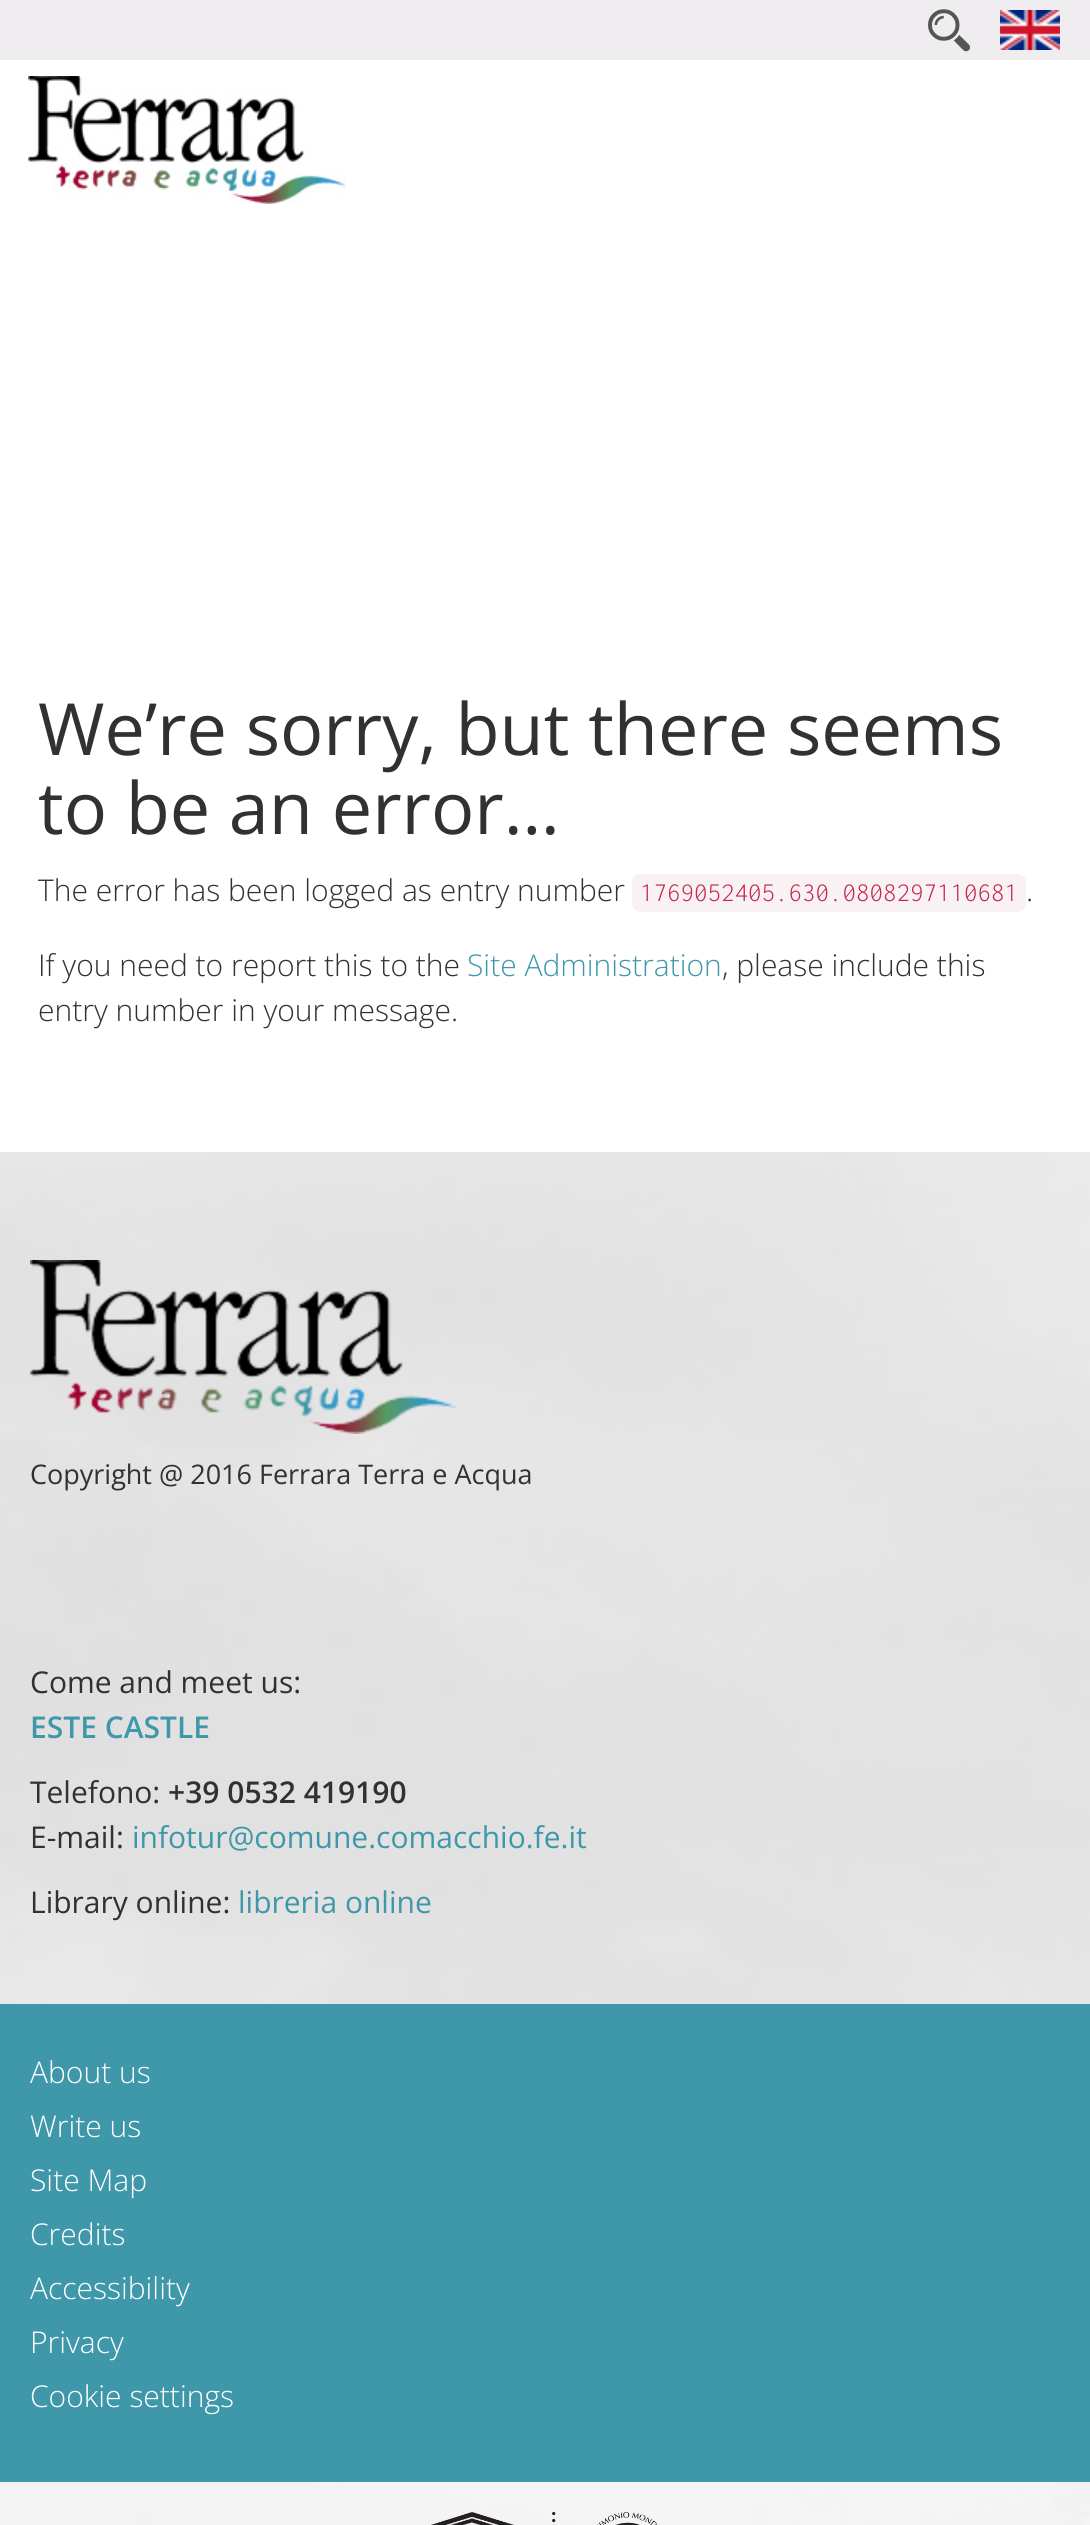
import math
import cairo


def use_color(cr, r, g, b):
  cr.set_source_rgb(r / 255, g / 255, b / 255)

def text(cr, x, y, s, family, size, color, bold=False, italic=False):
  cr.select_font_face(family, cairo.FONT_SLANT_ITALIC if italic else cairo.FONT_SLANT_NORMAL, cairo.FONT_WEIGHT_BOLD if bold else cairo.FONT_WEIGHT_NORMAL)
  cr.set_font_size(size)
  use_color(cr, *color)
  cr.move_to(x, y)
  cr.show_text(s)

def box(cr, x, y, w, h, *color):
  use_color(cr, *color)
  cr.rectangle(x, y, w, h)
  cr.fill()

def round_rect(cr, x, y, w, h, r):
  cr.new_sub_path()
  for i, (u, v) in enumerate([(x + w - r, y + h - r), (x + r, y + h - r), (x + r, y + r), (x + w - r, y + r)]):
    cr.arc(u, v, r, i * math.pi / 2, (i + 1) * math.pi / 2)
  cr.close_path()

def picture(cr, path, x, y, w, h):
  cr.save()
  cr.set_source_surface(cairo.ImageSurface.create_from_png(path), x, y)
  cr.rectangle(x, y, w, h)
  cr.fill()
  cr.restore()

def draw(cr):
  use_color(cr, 255, 255, 255)
  cr.paint()
  box(cr, 0, 0, 1090, 60, 239, 237, 239)
  picture(cr, "img_01.png", 1000, 10, 60, 40)
  picture(cr, "img_02.png", 928, 9, 42, 43)
  picture(cr, "img_03.png", 28, 76, 318, 128)
  use_color(cr, 249, 242, 244)
  round_rect(cr, 632, 874, 394, 38, 8)
  cr.fill()
  picture(cr, "img_04.png", 0, 1152, 1090, 1373)
  picture(cr, "img_05.png", 30, 1260, 427, 174)
  box(cr, 0, 2004, 1090, 478, 63, 151, 170)
  cr.set_source_rgba(1, 1, 1, 0.5)
  cr.rectangle(0, 2482, 1090, 43)
  cr.fill()
  picture(cr, "img_06.png", 431, 2512, 228, 13)
  text(cr, 38, 755, "We’re sorry, but there seems", "Open Sans", 72, (49, 49, 49))
  text(cr, 38, 834, "to be an error…", "Open Sans", 72, (49, 49, 49))
  text(cr, 38, 901, "The error has been logged as entry number", "Open Sans Light", 30, (49, 49, 49))
  text(cr, 640, 901, "1769052405.630.0808297110681", "Inconsolata Light", 27, (199, 37, 78))
  text(cr, 1026, 901, ".", "Open Sans Light", 30, (49, 49, 49))
  text(cr, 38, 976, "If you need to report this to the", "Open Sans Light", 30, (49, 49, 49))
  text(cr, 467, 976, "Site Administration", "Open Sans Light", 30, (63, 151, 170))
  text(cr, 722, 976, ", please include this", "Open Sans Light", 30, (49, 49, 49))
  text(cr, 38, 1021, "entry number in your message.", "Open Sans Light", 30, (49, 49, 49))
  text(cr, 30, 1484, "Copyright @ 2016 Ferrara Terra e Acqua", "Open Sans", 27, (49, 49, 49))
  text(cr, 30, 1693, "Come and meet us:", "Open Sans", 30, (49, 49, 49))
  text(cr, 30, 1738, "ESTE CASTLE", "Open Sans SemiBold", 30, (63, 151, 170))
  text(cr, 30, 1803, "Telefono:", "Open Sans", 30, (49, 49, 49))
  text(cr, 168, 1803, "+39 0532 419190", "Open Sans SemiBold", 30, (49, 49, 49))
  text(cr, 30, 1848, "E-mail:", "Open Sans", 30, (49, 49, 49))
  text(cr, 132, 1848, "infotur@comune.comacchio.fe.it", "Open Sans", 30, (63, 151, 170))
  text(cr, 30, 1913, "Library online:", "Open Sans", 30, (49, 49, 49))
  text(cr, 238, 1913, "libreria online", "Open Sans", 30, (63, 151, 170))
  text(cr, 30, 2083, "About us", "Open Sans Light", 30, (255, 255, 255))
  text(cr, 30, 2137, "Write us", "Open Sans Light", 30, (255, 255, 255))
  text(cr, 30, 2191, "Site Map", "Open Sans Light", 30, (255, 255, 255))
  text(cr, 30, 2245, "Credits", "Open Sans Light", 30, (255, 255, 255))
  text(cr, 30, 2299, "Accessibility", "Open Sans Light", 30, (255, 255, 255))
  text(cr, 30, 2353, "Privacy", "Open Sans Light", 30, (255, 255, 255))
  text(cr, 30, 2407, "Cookie settings", "Open Sans Light", 30, (255, 255, 255))


surface = cairo.ImageSurface(cairo.FORMAT_RGB24, 1090, 2525)
cr = cairo.Context(surface)
options = cairo.FontOptions()
options.set_hint_metrics(cairo.HINT_METRICS_OFF)
options.set_hint_style(cairo.HINT_STYLE_NONE)
cr.set_font_options(options)
cr.set_miter_limit(4)
draw(cr)
surface.write_to_png("out.png")
